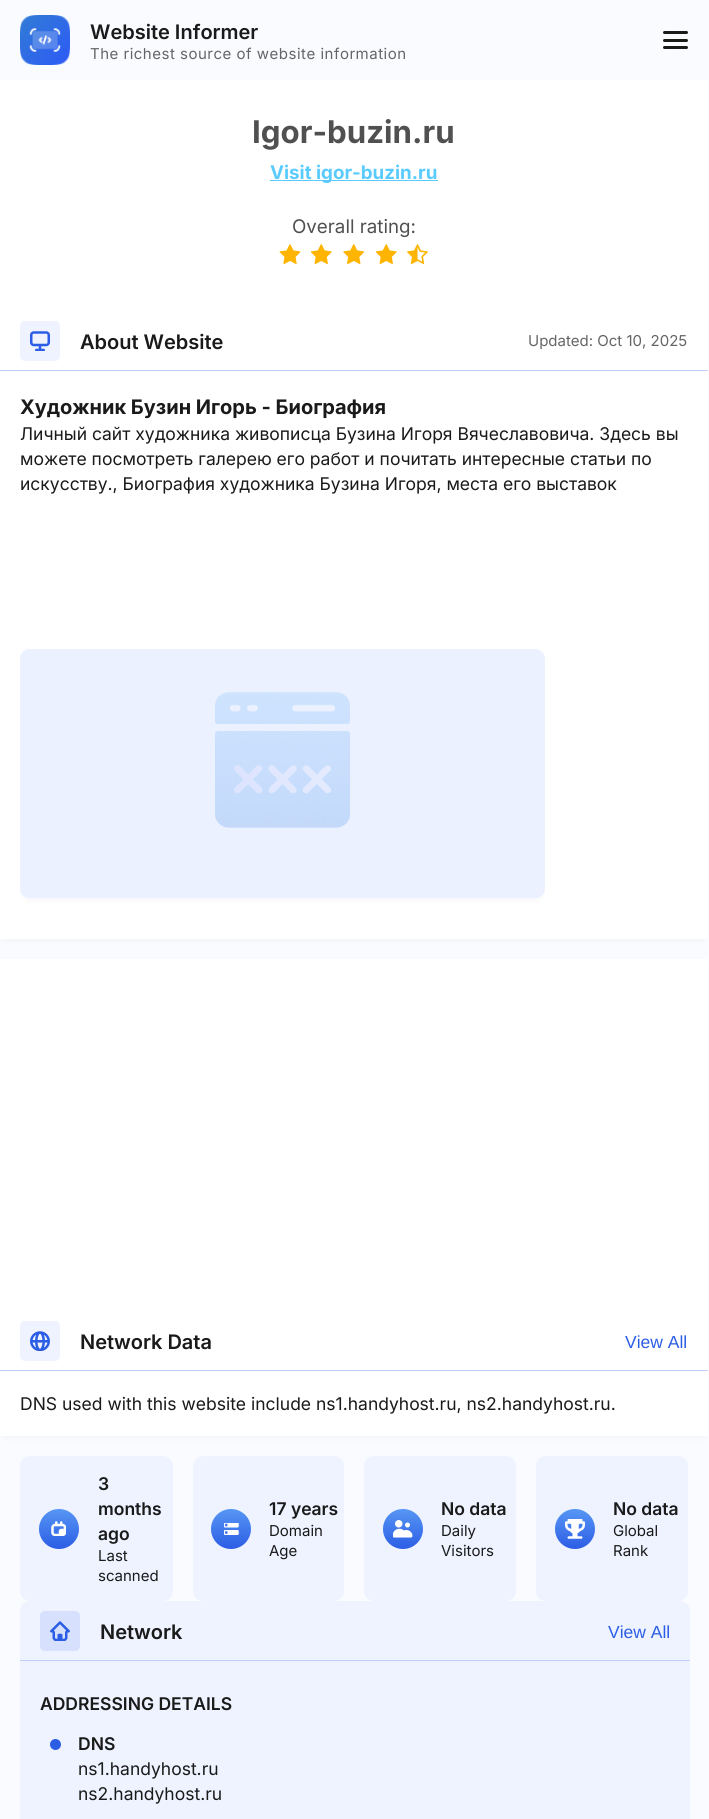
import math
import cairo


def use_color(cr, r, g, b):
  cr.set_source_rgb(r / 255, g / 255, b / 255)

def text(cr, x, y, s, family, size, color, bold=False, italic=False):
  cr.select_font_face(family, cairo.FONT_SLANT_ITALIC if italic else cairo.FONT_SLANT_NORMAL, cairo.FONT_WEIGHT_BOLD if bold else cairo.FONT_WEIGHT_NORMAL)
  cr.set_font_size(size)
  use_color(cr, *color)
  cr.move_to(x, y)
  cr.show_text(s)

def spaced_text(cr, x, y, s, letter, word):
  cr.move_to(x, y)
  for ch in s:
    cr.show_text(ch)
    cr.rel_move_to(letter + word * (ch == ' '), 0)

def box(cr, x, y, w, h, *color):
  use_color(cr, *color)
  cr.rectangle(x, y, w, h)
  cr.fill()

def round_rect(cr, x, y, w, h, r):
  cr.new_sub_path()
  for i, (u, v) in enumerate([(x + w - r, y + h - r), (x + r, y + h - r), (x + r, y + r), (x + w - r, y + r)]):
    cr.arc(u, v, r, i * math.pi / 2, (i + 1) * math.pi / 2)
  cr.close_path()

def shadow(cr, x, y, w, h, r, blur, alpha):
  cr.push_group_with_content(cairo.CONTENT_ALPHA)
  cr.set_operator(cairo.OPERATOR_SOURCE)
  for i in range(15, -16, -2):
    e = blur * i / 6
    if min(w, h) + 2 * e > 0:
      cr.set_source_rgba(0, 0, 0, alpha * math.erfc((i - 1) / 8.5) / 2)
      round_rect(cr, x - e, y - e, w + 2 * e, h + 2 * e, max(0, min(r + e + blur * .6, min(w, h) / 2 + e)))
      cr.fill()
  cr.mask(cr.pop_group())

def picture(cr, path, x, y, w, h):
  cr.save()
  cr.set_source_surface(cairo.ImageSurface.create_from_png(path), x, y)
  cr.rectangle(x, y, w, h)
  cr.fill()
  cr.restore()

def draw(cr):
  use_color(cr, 249, 251, 255)
  cr.paint()
  picture(cr, "img_01.png", 20, 15, 50, 50)
  use_color(cr, 26, 26, 26)
  round_rect(cr, 663, 31, 25, 3, 1.5)
  cr.fill()
  round_rect(cr, 663, 39, 25, 3, 1.5)
  cr.fill()
  round_rect(cr, 663, 46, 25, 3, 1.5)
  cr.fill()
  box(cr, 0, 80, 708, 231, 255, 255, 255)
  box(cr, 270, 180, 168, 1, 90, 203, 255)
  picture(cr, "img_02.png", 279, 244, 22, 20)
  picture(cr, "img_03.png", 310, 244, 22, 20)
  picture(cr, "img_04.png", 343, 244, 22, 20)
  picture(cr, "img_03.png", 375, 244, 22, 20)
  picture(cr, "img_05.png", 407, 244, 21, 20)
  use_color(cr, 26, 26, 26)
  shadow(cr, 5, 321, 698, 618, 0, 4, 0.06)
  box(cr, 0, 311, 708, 628, 255, 255, 255)
  use_color(cr, 238, 243, 255)
  round_rect(cr, 20, 321, 40, 40, 5)
  cr.fill()
  picture(cr, "img_06.png", 30, 331, 20, 20)
  box(cr, 0, 370, 708, 1, 191, 208, 253)
  use_color(cr, 26, 26, 26)
  shadow(cr, 25, 659, 515, 240, 5, 4, 0.06)
  use_color(cr, 255, 255, 255)
  round_rect(cr, 20, 649, 525, 250, 10)
  cr.fill()
  picture(cr, "img_07.png", 20, 649, 525, 250)
  use_color(cr, 26, 26, 26)
  shadow(cr, 5, 969, 698, 467, 0, 4, 0.06)
  box(cr, 0, 959, 708, 477, 255, 255, 255)
  use_color(cr, 238, 243, 255)
  round_rect(cr, 20, 1321, 40, 40, 5)
  cr.fill()
  picture(cr, "img_08.png", 30, 1331, 20, 20)
  box(cr, 0, 1370, 708, 1, 191, 208, 253)
  use_color(cr, 238, 243, 255)
  round_rect(cr, 20, 1456, 153, 145, 10)
  cr.fill()
  gradient = cairo.LinearGradient(59, 1509, 59, 1549)
  gradient.add_color_stop_rgba(0, 0.341, 0.588, 0.957, 1)
  gradient.add_color_stop_rgba(1, 0.173, 0.365, 0.898, 1)
  cr.set_source(gradient)
  cr.arc(59, 1529, 20, 0, 2 * math.pi)
  cr.fill()
  picture(cr, "img_09.png", 51, 1521, 15, 15)
  use_color(cr, 238, 243, 255)
  round_rect(cr, 193, 1456, 151, 145, 10)
  cr.fill()
  gradient = cairo.LinearGradient(231, 1509, 231, 1549)
  gradient.add_color_stop_rgba(0, 0.341, 0.588, 0.957, 1)
  gradient.add_color_stop_rgba(1, 0.173, 0.365, 0.898, 1)
  cr.set_source(gradient)
  cr.arc(231, 1529, 20, 0, 2 * math.pi)
  cr.fill()
  picture(cr, "img_10.png", 224, 1523, 15, 12)
  use_color(cr, 238, 243, 255)
  round_rect(cr, 364, 1456, 152, 145, 10)
  cr.fill()
  gradient = cairo.LinearGradient(403, 1509, 403, 1549)
  gradient.add_color_stop_rgba(0, 0.341, 0.588, 0.957, 1)
  gradient.add_color_stop_rgba(1, 0.173, 0.365, 0.898, 1)
  cr.set_source(gradient)
  cr.arc(403, 1529, 20, 0, 2 * math.pi)
  cr.fill()
  picture(cr, "img_11.png", 393, 1520, 20, 18)
  use_color(cr, 238, 243, 255)
  round_rect(cr, 536, 1456, 152, 145, 10)
  cr.fill()
  gradient = cairo.LinearGradient(575, 1509, 575, 1549)
  gradient.add_color_stop_rgba(0, 0.341, 0.588, 0.957, 1)
  gradient.add_color_stop_rgba(1, 0.173, 0.365, 0.898, 1)
  cr.set_source(gradient)
  cr.arc(575, 1529, 20, 0, 2 * math.pi)
  cr.fill()
  picture(cr, "img_12.png", 565, 1519, 20, 20)
  use_color(cr, 238, 243, 255)
  round_rect(cr, 20, 1601, 670, 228, 10)
  cr.fill()
  use_color(cr, 215, 225, 254)
  round_rect(cr, 40, 1611, 40, 40, 5)
  cr.fill()
  picture(cr, "img_13.png", 50, 1621, 20, 20)
  box(cr, 20, 1660, 670, 1, 191, 208, 253)
  use_color(cr, 44, 93, 229)
  cr.arc(55.5, 1744.5, 5.5, 0, 2 * math.pi)
  cr.fill()
  text(cr, 90, 39, "Website Informer", "Inter SemiBold", 20, (26, 26, 26))
  cr.select_font_face("Inter")
  cr.set_font_size(15)
  use_color(cr, 101, 101, 101)
  spaced_text(cr, 90, 59, "The richest source of website information", 0.5, 0)
  text(cr, 252, 143, "Igor-buzin.ru", "Inter", 31.25, (80, 80, 80), bold=True)
  text(cr, 270, 179, "Visit igor-buzin.ru", "Inter", 18.75, (90, 203, 255), bold=True)
  text(cr, 292, 233, "Overall rating:", "Inter", 18.75, (80, 80, 80))
  text(cr, 80, 349, "About Website", "Inter SemiBold", 20, (26, 26, 26))
  text(cr, 528, 346, "Updated: Oct 10, 2025", "Inter", 15, (101, 101, 101))
  text(cr, 20, 414, "Художник Бузин Игорь - Биография", "Inter", 20, (26, 26, 26), bold=True)
  text(cr, 20, 440, "Личный сайт художника живописца Бузина Игоря Вячеславовича. Здесь вы", "Inter", 17.5, (26, 26, 26))
  text(cr, 20, 465, "можете посмотреть галерею его работ и почитать интересные статьи по", "Inter", 17.5, (26, 26, 26))
  text(cr, 20, 490, "искусству., Биография художника Бузина Игоря, места его выставок", "Inter", 17.5, (26, 26, 26))
  text(cr, 80, 1349, "Network Data", "Inter SemiBold", 20, (26, 26, 26))
  text(cr, 625, 1348, "View All", "Liberation Sans", 17.5, (44, 93, 229))
  text(cr, 20, 1410, "DNS used with this website include ns1.handyhost.ru, ns2.handyhost.ru.", "Inter", 17.5, (26, 26, 26))
  text(cr, 98, 1490, "3", "Inter SemiBold", 17.5, (26, 26, 26))
  text(cr, 98, 1515, "months", "Inter SemiBold", 17.5, (26, 26, 26))
  text(cr, 98, 1540, "ago", "Inter SemiBold", 17.5, (26, 26, 26))
  text(cr, 98, 1561, "Last", "Inter", 15, (26, 26, 26))
  text(cr, 98, 1581, "scanned", "Inter", 15, (26, 26, 26))
  text(cr, 269, 1515, "17 years", "Inter SemiBold", 17.5, (26, 26, 26))
  text(cr, 269, 1536, "Domain", "Inter", 15, (26, 26, 26))
  text(cr, 269, 1556, "Age", "Inter", 15, (26, 26, 26))
  text(cr, 441, 1515, "No data", "Inter SemiBold", 17.5, (26, 26, 26))
  text(cr, 441, 1536, "Daily", "Inter", 15, (26, 26, 26))
  text(cr, 441, 1556, "Visitors", "Inter", 15, (26, 26, 26))
  text(cr, 613, 1515, "No data", "Inter SemiBold", 17.5, (26, 26, 26))
  text(cr, 613, 1536, "Global", "Inter", 15, (26, 26, 26))
  text(cr, 613, 1556, "Rank", "Inter", 15, (26, 26, 26))
  text(cr, 100, 1639, "Network", "Inter SemiBold", 20, (26, 26, 26))
  text(cr, 608, 1638, "View All", "Liberation Sans", 17.5, (44, 93, 229))
  text(cr, 40, 1710, "ADDRESSING DETAILS", "Inter SemiBold", 17.5, (26, 26, 26))
  text(cr, 78, 1750, "DNS", "Inter SemiBold", 17.5, (26, 26, 26))
  text(cr, 78, 1775, "ns1.handyhost.ru", "Inter", 17.5, (26, 26, 26))
  text(cr, 78, 1800, "ns2.handyhost.ru", "Inter", 17.5, (26, 26, 26))


surface = cairo.ImageSurface(cairo.FORMAT_RGB24, 709, 1819)
cr = cairo.Context(surface)
options = cairo.FontOptions()
options.set_hint_metrics(cairo.HINT_METRICS_OFF)
options.set_hint_style(cairo.HINT_STYLE_NONE)
cr.set_font_options(options)
cr.set_miter_limit(4)
draw(cr)
surface.write_to_png("out.png")
